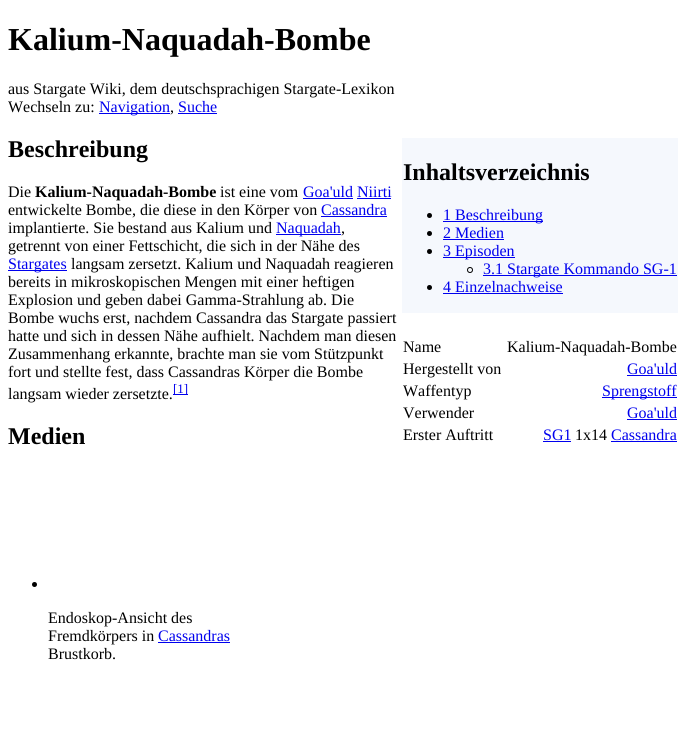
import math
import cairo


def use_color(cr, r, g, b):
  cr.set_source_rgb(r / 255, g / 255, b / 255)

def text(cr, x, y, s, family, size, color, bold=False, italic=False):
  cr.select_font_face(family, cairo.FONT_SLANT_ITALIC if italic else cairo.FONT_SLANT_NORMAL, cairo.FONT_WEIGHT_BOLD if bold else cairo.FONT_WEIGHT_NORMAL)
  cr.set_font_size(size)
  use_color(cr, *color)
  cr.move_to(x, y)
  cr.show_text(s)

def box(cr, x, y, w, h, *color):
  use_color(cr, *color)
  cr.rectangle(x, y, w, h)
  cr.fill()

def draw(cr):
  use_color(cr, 255, 255, 255)
  cr.paint()
  box(cr, 99, 113, 71, 1, 0, 0, 238)
  box(cr, 178, 113, 39, 1, 0, 0, 238)
  box(cr, 303, 198, 50, 1, 0, 0, 238)
  box(cr, 357, 198, 34, 1, 0, 0, 238)
  box(cr, 321, 216, 66, 1, 0, 0, 238)
  box(cr, 276, 234, 65, 1, 0, 0, 238)
  box(cr, 8, 270, 59, 1, 0, 0, 238)
  box(cr, 173, 394, 15, 1, 0, 0, 238)
  box(cr, 402, 138, 276, 175, 245, 248, 253)
  use_color(cr, 0, 0, 0)
  cr.arc(429.5, 215.5, 2.5, 0, 2 * math.pi)
  cr.fill()
  box(cr, 443, 221, 100, 1, 0, 0, 238)
  use_color(cr, 0, 0, 0)
  cr.arc(429.5, 233.5, 2.5, 0, 2 * math.pi)
  cr.fill()
  box(cr, 443, 239, 61, 1, 0, 0, 238)
  use_color(cr, 0, 0, 0)
  cr.arc(429.5, 251.5, 2.5, 0, 2 * math.pi)
  cr.fill()
  box(cr, 443, 257, 72, 1, 0, 0, 238)
  cr.arc(470, 270, 2.5, 0, 2 * math.pi)
  use_color(cr, 0, 0, 0)
  cr.set_line_width(1)
  cr.stroke()
  box(cr, 483, 275, 194, 1, 0, 0, 238)
  use_color(cr, 0, 0, 0)
  cr.arc(429.5, 287.5, 2.5, 0, 2 * math.pi)
  cr.fill()
  box(cr, 443, 293, 120, 1, 0, 0, 238)
  box(cr, 627, 375, 50, 1, 0, 0, 238)
  box(cr, 602, 397, 75, 1, 0, 0, 238)
  box(cr, 627, 419, 50, 1, 0, 0, 238)
  box(cr, 543, 441, 28, 1, 0, 0, 238)
  box(cr, 611, 441, 66, 1, 0, 0, 238)
  use_color(cr, 0, 0, 0)
  cr.arc(34.5, 584.5, 2.5, 0, 2 * math.pi)
  cr.fill()
  box(cr, 158, 642, 72, 1, 0, 0, 238)
  text(cr, 8, 50, "Kalium-Naquadah-Bombe", "Liberation Serif", 32, (0, 0, 0), bold=True)
  text(cr, 8, 94, "aus Stargate Wiki, dem deutschsprachigen Stargate-Lexikon", "Liberation Serif", 16, (0, 0, 0))
  text(cr, 8, 112, "Wechseln zu:", "Liberation Serif", 16, (0, 0, 0))
  text(cr, 99, 112, "Navigation", "Liberation Serif", 16, (0, 0, 238))
  text(cr, 170, 112, ",", "Liberation Serif", 16, (0, 0, 0))
  text(cr, 178, 112, "Suche", "Liberation Serif", 16, (0, 0, 238))
  text(cr, 8, 157, "Beschreibung", "Liberation Serif", 24, (0, 0, 0), bold=True)
  text(cr, 8, 197, "Die", "Liberation Serif", 16, (0, 0, 0))
  text(cr, 35, 197, "Kalium-Naquadah-Bombe", "Liberation Serif", 16, (0, 0, 0), bold=True)
  text(cr, 220, 197, "ist eine vom", "Liberation Serif", 16, (0, 0, 0))
  text(cr, 303, 197, "Goa'uld Niirti", "Liberation Serif", 16, (0, 0, 238))
  text(cr, 8, 215, "entwickelte Bombe, die diese in den Körper von", "Liberation Serif", 16, (0, 0, 0))
  text(cr, 321, 215, "Cassandra", "Liberation Serif", 16, (0, 0, 238))
  text(cr, 8, 233, "implantierte. Sie bestand aus Kalium und", "Liberation Serif", 16, (0, 0, 0))
  text(cr, 276, 233, "Naquadah", "Liberation Serif", 16, (0, 0, 238))
  text(cr, 341, 233, ",", "Liberation Serif", 16, (0, 0, 0))
  text(cr, 8, 251, "getrennt von einer Fettschicht, die sich in der Nähe des", "Liberation Serif", 16, (0, 0, 0))
  text(cr, 8, 269, "Stargates", "Liberation Serif", 16, (0, 0, 238))
  text(cr, 71, 269, "langsam zersetzt. Kalium und Naquadah reagieren", "Liberation Serif", 16, (0, 0, 0))
  text(cr, 8, 287, "bereits in mikroskopischen Mengen mit einer heftigen", "Liberation Serif", 16, (0, 0, 0))
  text(cr, 8, 305, "Explosion und geben dabei Gamma-Strahlung ab. Die", "Liberation Serif", 16, (0, 0, 0))
  text(cr, 8, 323, "Bombe wuchs erst, nachdem Cassandra das Stargate passiert", "Liberation Serif", 16, (0, 0, 0))
  text(cr, 8, 341, "hatte und sich in dessen Nähe aufhielt. Nachdem man diesen", "Liberation Serif", 16, (0, 0, 0))
  text(cr, 8, 359, "Zusammenhang erkannte, brachte man sie vom Stützpunkt", "Liberation Serif", 16, (0, 0, 0))
  text(cr, 8, 377, "fort und stellte fest, dass Cassandras Körper die Bombe", "Liberation Serif", 16, (0, 0, 0))
  text(cr, 8, 399, "langsam wieder zersetzte.", "Liberation Serif", 16, (0, 0, 0))
  text(cr, 173, 393, "[1]", "Liberation Serif", 13, (0, 0, 238))
  text(cr, 403, 180, "Inhaltsverzeichnis", "Liberation Serif", 24, (0, 0, 0), bold=True)
  text(cr, 443, 220, "1 Beschreibung", "Liberation Serif", 16, (0, 0, 238))
  text(cr, 443, 238, "2 Medien", "Liberation Serif", 16, (0, 0, 238))
  text(cr, 443, 256, "3 Episoden", "Liberation Serif", 16, (0, 0, 238))
  text(cr, 483, 274, "3.1 Stargate Kommando SG-1", "Liberation Serif", 16, (0, 0, 238))
  text(cr, 443, 292, "4 Einzelnachweise", "Liberation Serif", 16, (0, 0, 238))
  text(cr, 403, 352, "Name", "Liberation Serif", 16, (0, 0, 0))
  text(cr, 507, 352, "Kalium-Naquadah-Bombe", "Liberation Serif", 16, (0, 0, 0))
  text(cr, 403, 374, "Hergestellt von", "Liberation Serif", 16, (0, 0, 0))
  text(cr, 627, 374, "Goa'uld", "Liberation Serif", 16, (0, 0, 238))
  text(cr, 403, 396, "Waffentyp", "Liberation Serif", 16, (0, 0, 0))
  text(cr, 602, 396, "Sprengstoff", "Liberation Serif", 16, (0, 0, 238))
  text(cr, 403, 418, "Verwender", "Liberation Serif", 16, (0, 0, 0))
  text(cr, 627, 418, "Goa'uld", "Liberation Serif", 16, (0, 0, 238))
  text(cr, 403, 440, "Erster Auftritt", "Liberation Serif", 16, (0, 0, 0))
  text(cr, 543, 440, "SG1", "Liberation Serif", 16, (0, 0, 238))
  text(cr, 575, 440, "1x14", "Liberation Serif", 16, (0, 0, 0))
  text(cr, 611, 440, "Cassandra", "Liberation Serif", 16, (0, 0, 238))
  text(cr, 8, 444, "Medien", "Liberation Serif", 24, (0, 0, 0), bold=True)
  text(cr, 48, 623, "Endoskop-Ansicht des", "Liberation Serif", 16, (0, 0, 0))
  text(cr, 48, 641, "Fremdkörpers in", "Liberation Serif", 16, (0, 0, 0))
  text(cr, 158, 641, "Cassandras", "Liberation Serif", 16, (0, 0, 238))
  text(cr, 48, 659, "Brustkorb.", "Liberation Serif", 16, (0, 0, 0))


surface = cairo.ImageSurface(cairo.FORMAT_RGB24, 688, 735)
cr = cairo.Context(surface)
options = cairo.FontOptions()
options.set_hint_metrics(cairo.HINT_METRICS_OFF)
options.set_hint_style(cairo.HINT_STYLE_NONE)
cr.set_font_options(options)
cr.set_miter_limit(4)
draw(cr)
surface.write_to_png("out.png")
